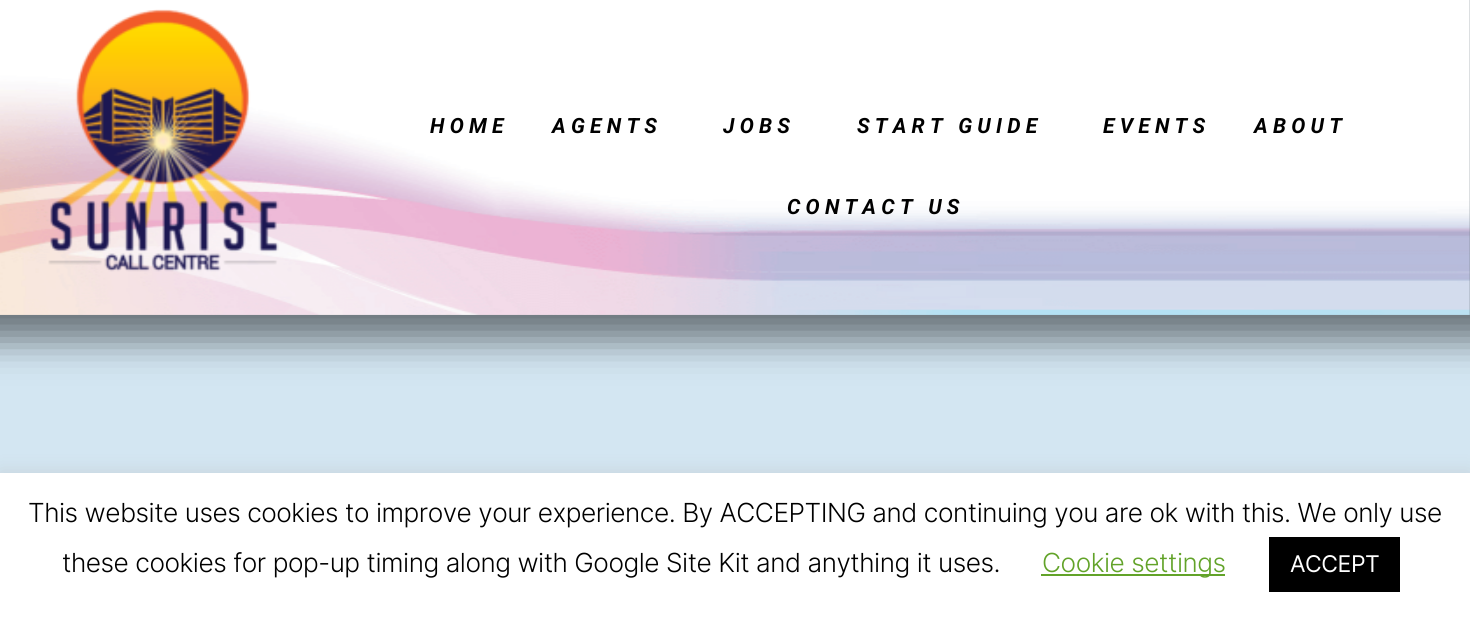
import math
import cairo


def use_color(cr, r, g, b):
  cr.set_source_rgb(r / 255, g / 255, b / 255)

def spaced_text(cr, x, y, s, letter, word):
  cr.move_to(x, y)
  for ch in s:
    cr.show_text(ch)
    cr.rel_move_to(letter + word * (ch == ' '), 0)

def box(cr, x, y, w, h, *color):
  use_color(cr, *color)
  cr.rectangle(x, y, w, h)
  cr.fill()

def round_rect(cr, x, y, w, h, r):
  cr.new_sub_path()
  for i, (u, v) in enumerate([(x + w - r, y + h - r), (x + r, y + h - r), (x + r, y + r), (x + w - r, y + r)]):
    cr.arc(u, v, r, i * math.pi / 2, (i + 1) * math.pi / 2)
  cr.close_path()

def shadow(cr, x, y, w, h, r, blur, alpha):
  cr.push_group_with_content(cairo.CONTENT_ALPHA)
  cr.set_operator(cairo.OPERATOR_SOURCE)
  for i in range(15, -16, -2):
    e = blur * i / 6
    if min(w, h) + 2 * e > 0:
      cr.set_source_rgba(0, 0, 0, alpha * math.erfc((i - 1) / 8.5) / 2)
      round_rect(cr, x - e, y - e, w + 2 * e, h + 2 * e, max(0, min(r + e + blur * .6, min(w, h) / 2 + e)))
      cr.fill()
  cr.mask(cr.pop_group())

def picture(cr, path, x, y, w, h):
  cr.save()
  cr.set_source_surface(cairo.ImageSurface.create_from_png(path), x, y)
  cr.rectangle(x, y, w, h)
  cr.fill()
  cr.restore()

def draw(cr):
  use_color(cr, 211, 230, 242)
  cr.paint()
  use_color(cr, 0, 0, 0)
  shadow(cr, -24, -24, 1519, 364, 0, 18.5, 0.5)
  picture(cr, "img_01.png", 0, 0, 1470, 315)
  picture(cr, "img_02.png", 48, 9, 231, 263)
  use_color(cr, 172, 171, 171)
  shadow(cr, 0, 471, 1470, 149, 0, 9, 0.3)
  box(cr, 0, 473, 1470, 148, 255, 255, 255)
  box(cr, 1041, 574, 184, 2, 98, 163, 41)
  box(cr, 1269, 537, 131, 55, 0, 0, 0)
  cr.select_font_face("Roboto", cairo.FONT_SLANT_ITALIC, cairo.FONT_WEIGHT_BOLD)
  cr.set_font_size(21)
  spaced_text(cr, 430, 133, "HOME", 5.25, 0)
  spaced_text(cr, 552, 133, "AGENTS", 5.25, 0)
  spaced_text(cr, 723, 133, "JOBS", 5.25, 0)
  spaced_text(cr, 857, 133, "START GUIDE", 5.25, 0)
  spaced_text(cr, 1103, 133, "EVENTS", 5.25, 0)
  spaced_text(cr, 1254, 133, "ABOUT", 5.25, 0)
  spaced_text(cr, 787, 214, "CONTACT US", 5.25, 0)
  cr.select_font_face("Inter Light")
  cr.set_font_size(26.25)
  spaced_text(cr, 28, 522, "This website uses cookies to improve your experience. By ACCEPTING and continuing you are ok with this. We only use", -0.47, 0)
  spaced_text(cr, 62, 572, "these cookies for pop-up timing along with Google Site Kit and anything it uses.", -0.47, 0)
  use_color(cr, 98, 163, 41)
  spaced_text(cr, 1042, 572, "Cookie settings", -0.47, 0)
  cr.select_font_face("Inter")
  cr.set_font_size(23)
  use_color(cr, 255, 255, 255)
  spaced_text(cr, 1290, 572, "ACCEPT", -0.47, 0)


surface = cairo.ImageSurface(cairo.FORMAT_RGB24, 1470, 621)
cr = cairo.Context(surface)
options = cairo.FontOptions()
options.set_hint_metrics(cairo.HINT_METRICS_OFF)
options.set_hint_style(cairo.HINT_STYLE_NONE)
cr.set_font_options(options)
cr.set_miter_limit(4)
draw(cr)
surface.write_to_png("out.png")
